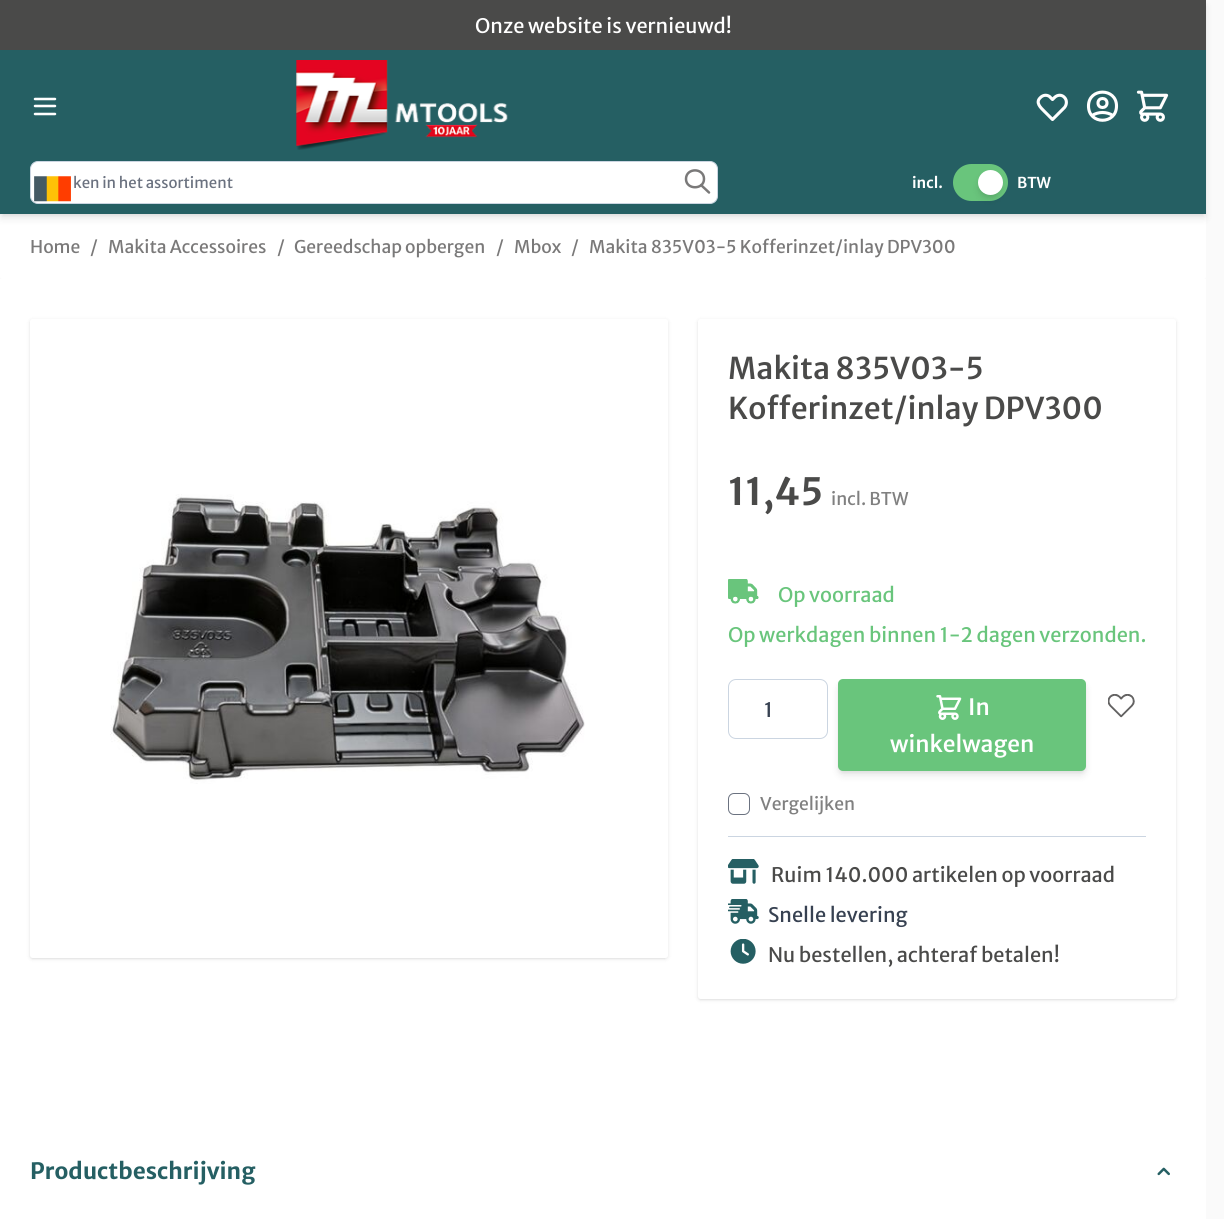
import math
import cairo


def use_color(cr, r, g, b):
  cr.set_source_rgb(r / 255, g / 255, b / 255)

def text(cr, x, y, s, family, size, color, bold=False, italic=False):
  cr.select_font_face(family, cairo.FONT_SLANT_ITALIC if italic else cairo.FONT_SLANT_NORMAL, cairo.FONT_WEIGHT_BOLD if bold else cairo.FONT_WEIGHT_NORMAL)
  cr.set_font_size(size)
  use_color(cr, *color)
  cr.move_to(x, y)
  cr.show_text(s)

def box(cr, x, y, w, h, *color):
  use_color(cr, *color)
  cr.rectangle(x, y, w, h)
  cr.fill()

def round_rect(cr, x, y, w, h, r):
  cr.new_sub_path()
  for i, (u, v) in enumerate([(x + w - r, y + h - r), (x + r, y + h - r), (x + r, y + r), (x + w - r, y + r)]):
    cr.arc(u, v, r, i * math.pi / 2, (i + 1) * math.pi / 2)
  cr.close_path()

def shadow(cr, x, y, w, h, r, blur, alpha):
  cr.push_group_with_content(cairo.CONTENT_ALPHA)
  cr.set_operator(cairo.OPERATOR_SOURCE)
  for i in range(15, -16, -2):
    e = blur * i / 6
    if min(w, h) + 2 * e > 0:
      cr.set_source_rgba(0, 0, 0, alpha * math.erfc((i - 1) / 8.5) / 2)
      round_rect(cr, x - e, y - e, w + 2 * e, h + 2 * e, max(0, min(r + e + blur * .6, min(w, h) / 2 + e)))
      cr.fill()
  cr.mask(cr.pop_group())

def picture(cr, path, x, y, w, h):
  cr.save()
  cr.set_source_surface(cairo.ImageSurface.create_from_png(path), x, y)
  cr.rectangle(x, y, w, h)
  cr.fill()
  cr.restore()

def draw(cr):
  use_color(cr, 250, 250, 250)
  cr.paint()
  use_color(cr, 255, 255, 255)
  round_rect(cr, 0, 214, 1206, 65, 2.5)
  cr.fill()
  use_color(cr, 0, 0, 0)
  shadow(cr, 3, 5, 1201, 209, 0, 2.5, 0.1)
  shadow(cr, 1, 6, 1204, 212, 0, 4, 0.1)
  box(cr, 0, 0, 1206, 50, 74, 74, 73)
  box(cr, 0, 50, 1206, 164, 37, 95, 99)
  cr.new_path()
  cr.move_to(35, 99)
  cr.line_to(55, 99)
  cr.move_to(35, 106)
  cr.line_to(55, 106)
  cr.move_to(35, 114)
  cr.line_to(55, 114)
  use_color(cr, 255, 255, 255)
  cr.set_line_width(2.5)
  cr.set_line_cap(cairo.LINE_CAP_ROUND)
  cr.set_line_join(cairo.LINE_JOIN_ROUND)
  cr.stroke()
  picture(cr, "img_01.png", 296, 60, 212, 90)
  cr.new_path()
  cr.move_to(1040.5, 97.5)
  cr.curve_to(1035, 102.5, 1040.5, 107.5, 1044.5, 111.5)
  cr.line_to(1052.5, 119.5)
  cr.line_to(1064.5, 107.5)
  cr.curve_to(1067, 104.5, 1067, 100, 1064.5, 97.5)
  cr.curve_to(1062, 94.5, 1057.5, 94.5, 1054.5, 97.5)
  cr.line_to(1052.5, 99.5)
  cr.line_to(1049.5, 96.5)
  cr.curve_to(1046.5, 94.5, 1043, 95, 1040.5, 97.5)
  cr.close_path()
  cr.set_line_width(3.1)
  cr.stroke()
  cr.new_path()
  cr.move_to(1092, 115.5)
  cr.curve_to(1098.5, 111.5, 1106.5, 111.5, 1113, 115.5)
  cr.move_to(1107, 103)
  cr.curve_to(1107, 109, 1098, 109, 1098, 103)
  cr.curve_to(1098, 97, 1107, 97, 1107, 103)
  cr.close_path()
  cr.move_to(1116.5, 106)
  cr.curve_to(1116.5, 125, 1088.5, 125, 1088.5, 106)
  cr.curve_to(1088.5, 87.5, 1116.5, 87.5, 1116.5, 106)
  cr.close_path()
  cr.stroke()
  picture(cr, "img_02.png", 1136, 90, 33, 32)
  round_rect(cr, 30.5, 161.5, 687, 42, 7.5)
  cr.fill_preserve()
  use_color(cr, 203, 213, 225)
  cr.set_line_width(1)
  cr.set_line_cap(cairo.LINE_CAP_BUTT)
  cr.set_line_join(cairo.LINE_JOIN_MITER)
  cr.stroke()
  picture(cr, "img_03.png", 34, 176, 37, 26)
  cr.new_path()
  cr.move_to(709, 192.5)
  cr.line_to(701, 185)
  cr.move_to(704, 179)
  cr.curve_to(704, 190, 686, 190, 686, 179)
  cr.curve_to(686, 167.5, 704, 167.5, 704, 179)
  cr.close_path()
  use_color(cr, 122, 121, 121)
  cr.set_line_width(2.5)
  cr.set_line_cap(cairo.LINE_CAP_ROUND)
  cr.set_line_join(cairo.LINE_JOIN_ROUND)
  cr.stroke()
  use_color(cr, 105, 197, 124)
  round_rect(cr, 953, 164, 55, 37, 18.5)
  cr.fill()
  use_color(cr, 0, 0, 0)
  shadow(cr, 980, 175, 20, 20, 10, 2.5, 0.1)
  shadow(cr, 979, 176, 22, 23, 11, 4, 0.1)
  use_color(cr, 255, 255, 255)
  cr.arc(990.5, 182.5, 12.5, 0, 2 * math.pi)
  cr.fill()
  box(cr, 0, 279, 1206, 940, 255, 255, 255)
  use_color(cr, 0, 0, 0)
  shadow(cr, 31, 321, 635, 637, 1, 1, 0.1)
  shadow(cr, 30, 320, 638, 639, 2.5, 2, 0.1)
  use_color(cr, 255, 255, 255)
  round_rect(cr, 30, 319, 638, 639, 2.5)
  cr.fill()
  picture(cr, "img_04.png", 110, 494, 475, 290)
  use_color(cr, 0, 0, 0)
  shadow(cr, 699, 321, 476, 678, 1, 1, 0.1)
  shadow(cr, 698, 320, 478, 680, 2.5, 2, 0.1)
  use_color(cr, 255, 255, 255)
  round_rect(cr, 698, 319, 478, 680, 2.5)
  cr.fill()
  picture(cr, "img_05.png", 728, 579, 31, 25)
  round_rect(cr, 728.5, 679.5, 99, 59, 7.5)
  use_color(cr, 203, 213, 225)
  cr.set_line_width(1)
  cr.set_line_cap(cairo.LINE_CAP_BUTT)
  cr.set_line_join(cairo.LINE_JOIN_MITER)
  cr.stroke()
  use_color(cr, 0, 0, 0)
  shadow(cr, 840, 684, 244, 87, 2.5, 2.5, 0.1)
  shadow(cr, 839, 685, 246, 90, 4, 4, 0.1)
  use_color(cr, 105, 197, 124)
  round_rect(cr, 838, 679, 248, 92, 5)
  cr.fill()
  picture(cr, "img_06.png", 936, 695, 26, 25)
  picture(cr, "img_07.png", 1108, 694, 27, 24)
  round_rect(cr, 728.5, 793.5, 21, 21, 5.5)
  use_color(cr, 107, 114, 128)
  cr.stroke()
  box(cr, 728, 836, 418, 1, 203, 213, 225)
  picture(cr, "img_08.png", 728, 859, 31, 25)
  picture(cr, "img_09.png", 728, 899, 31, 25)
  picture(cr, "img_10.png", 730, 939, 26, 25)
  picture(cr, "img_11.png", 1157, 1167, 13, 9)
  text(cr, 475, 33, "Onze website is vernieuwd!", "Merriweather Sans", 20, (255, 255, 255))
  text(cr, 73, 188, "ken in het assortiment", "Merriweather Sans", 15, (107, 114, 128))
  text(cr, 912, 188, "incl.", "Merriweather Sans SemiBold", 15, (255, 255, 255))
  text(cr, 1017, 188, "BTW", "Merriweather Sans SemiBold", 15, (255, 255, 255))
  text(cr, 30, 253, "Home", "Merriweather Sans", 17.5, (122, 121, 121))
  text(cr, 90, 253, "/", "Merriweather Sans", 17.5, (122, 121, 121))
  text(cr, 108, 253, "Makita Accessoires", "Merriweather Sans", 17.5, (122, 121, 121))
  text(cr, 277, 253, "/", "Merriweather Sans", 17.5, (122, 121, 121))
  text(cr, 294, 253, "Gereedschap opbergen", "Merriweather Sans", 17.5, (122, 121, 121))
  text(cr, 496, 253, "/", "Merriweather Sans", 17.5, (122, 121, 121))
  text(cr, 514, 253, "Mbox", "Merriweather Sans", 17.5, (122, 121, 121))
  text(cr, 571, 253, "/", "Merriweather Sans", 17.5, (122, 121, 121))
  text(cr, 589, 253, "Makita 835V03-5 Kofferinzet/inlay DPV300", "Merriweather Sans", 17.5, (122, 121, 121))
  text(cr, 728, 379, "Makita 835V03-5", "Merriweather Sans Medium", 30, (74, 74, 73))
  text(cr, 728, 419, "Kofferinzet/inlay DPV300", "Merriweather Sans Medium", 30, (74, 74, 73))
  text(cr, 728, 505, "11,45", "Merriweather Sans SemiBold", 37.5, (74, 74, 73))
  text(cr, 831, 505, "incl. BTW", "Merriweather Sans", 17.5, (128, 128, 128))
  text(cr, 778, 602, "Op voorraad", "Merriweather Sans", 20, (105, 197, 124))
  text(cr, 728, 642, "Op werkdagen binnen 1-2 dagen verzonden.", "Merriweather Sans", 20, (105, 197, 124))
  text(cr, 764, 717, "1", "Merriweather Sans", 20, (55, 65, 81))
  text(cr, 968, 715, "In", "Merriweather Sans Medium", 22.5, (255, 255, 255))
  text(cr, 890, 752, "winkelwagen", "Merriweather Sans Medium", 22.5, (255, 255, 255))
  text(cr, 760, 810, "Vergelijken", "Merriweather Sans", 17.5, (128, 128, 128))
  text(cr, 771, 882, "Ruim 140.000 artikelen op voorraad", "Merriweather Sans", 20, (74, 74, 73))
  text(cr, 768, 922, "Snelle levering", "Merriweather Sans", 20, (55, 65, 81))
  text(cr, 768, 962, "Nu bestellen, achteraf betalen!", "Merriweather Sans", 20, (74, 74, 73))
  text(cr, 30, 1179, "Productbeschrijving", "Merriweather Sans", 22.5, (37, 95, 99), bold=True)


surface = cairo.ImageSurface(cairo.FORMAT_RGB24, 1224, 1219)
cr = cairo.Context(surface)
options = cairo.FontOptions()
options.set_hint_metrics(cairo.HINT_METRICS_OFF)
options.set_hint_style(cairo.HINT_STYLE_NONE)
cr.set_font_options(options)
cr.set_miter_limit(4)
draw(cr)
surface.write_to_png("out.png")
